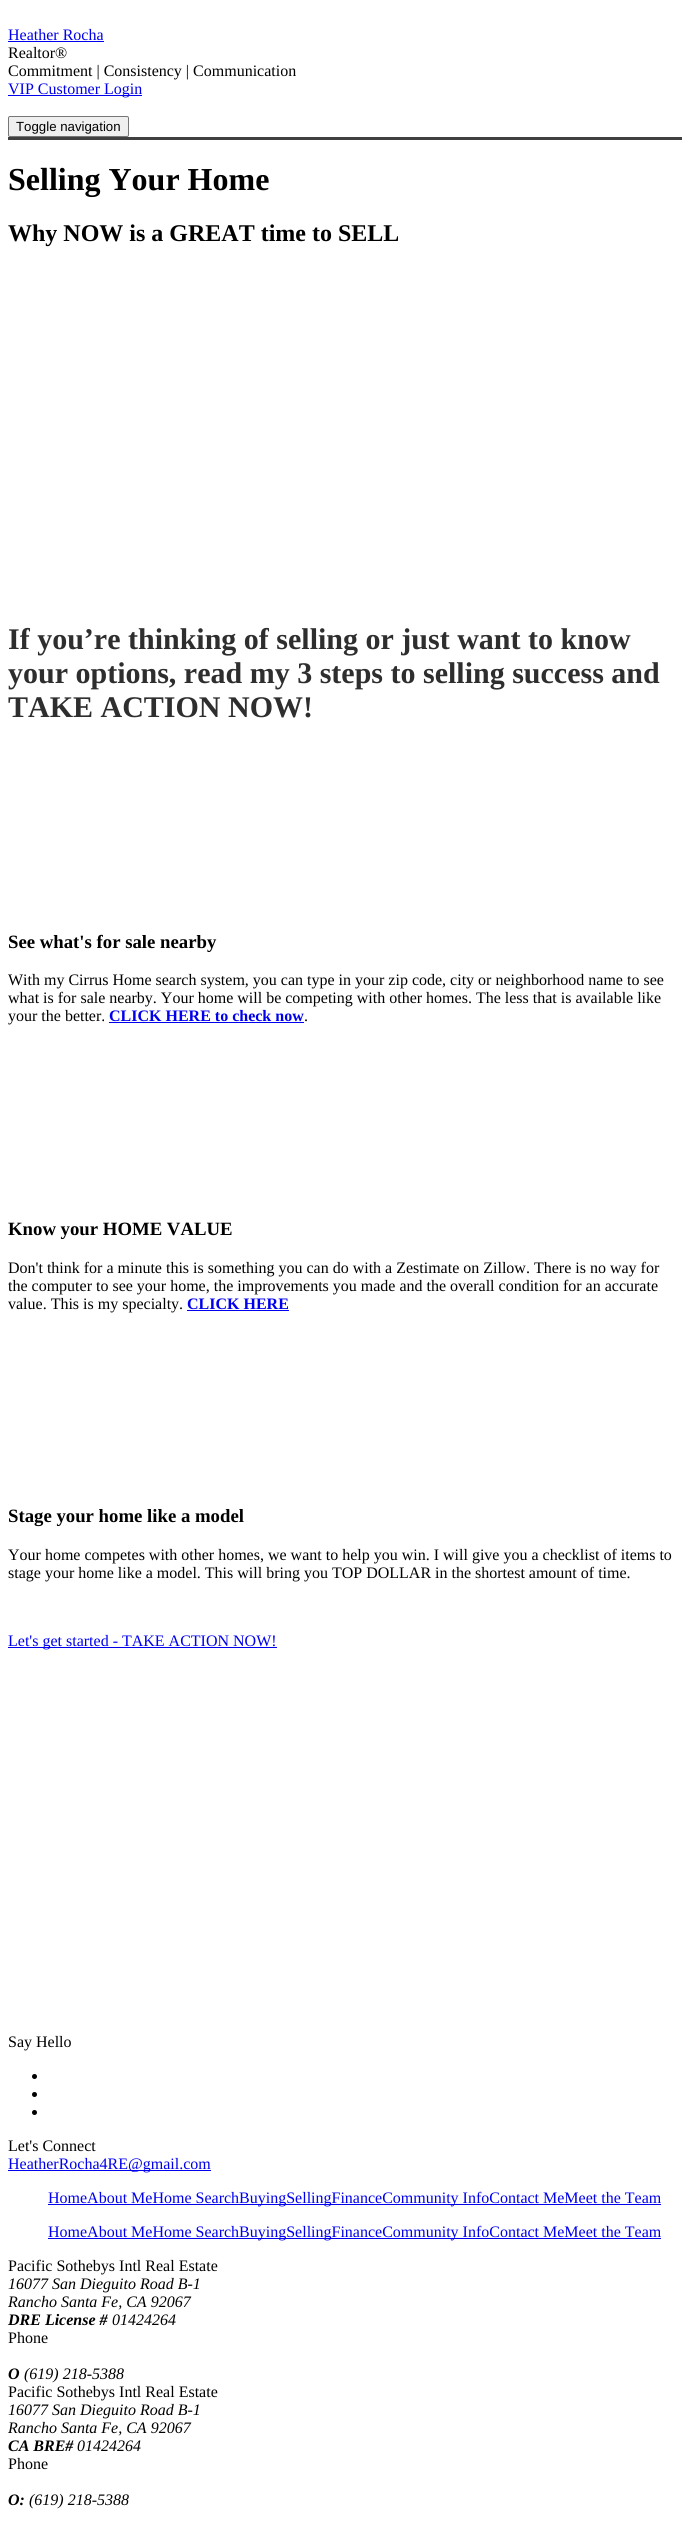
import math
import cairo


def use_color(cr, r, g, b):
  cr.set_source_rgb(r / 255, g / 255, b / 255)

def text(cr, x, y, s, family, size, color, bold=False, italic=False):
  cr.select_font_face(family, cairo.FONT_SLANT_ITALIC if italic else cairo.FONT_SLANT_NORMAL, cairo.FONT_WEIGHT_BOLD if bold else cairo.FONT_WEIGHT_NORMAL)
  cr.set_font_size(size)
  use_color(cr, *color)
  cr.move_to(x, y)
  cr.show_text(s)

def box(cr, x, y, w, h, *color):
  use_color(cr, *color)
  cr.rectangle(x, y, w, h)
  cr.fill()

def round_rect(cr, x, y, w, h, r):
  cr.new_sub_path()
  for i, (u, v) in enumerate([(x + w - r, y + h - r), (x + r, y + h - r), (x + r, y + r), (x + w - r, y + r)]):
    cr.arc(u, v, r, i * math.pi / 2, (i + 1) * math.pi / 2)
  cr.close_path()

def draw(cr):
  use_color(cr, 255, 255, 255)
  cr.paint()
  box(cr, 8, 41, 96, 1, 0, 0, 238)
  box(cr, 8, 95, 134, 1, 0, 0, 238)
  box(cr, 8, 137, 674, 3, 64, 64, 64)
  use_color(cr, 239, 239, 239)
  round_rect(cr, 8.5, 116.5, 120, 20, 1.5)
  cr.fill_preserve()
  use_color(cr, 118, 118, 118)
  cr.set_line_width(1)
  cr.stroke()
  box(cr, 109, 1022, 195, 1, 0, 0, 238)
  box(cr, 187, 1310, 102, 1, 0, 0, 238)
  box(cr, 8, 1647, 269, 1, 0, 0, 238)
  use_color(cr, 0, 0, 0)
  cr.arc(34.5, 2076.5, 2.5, 0, 2 * math.pi)
  cr.fill()
  cr.arc(34.5, 2094.5, 2.5, 0, 2 * math.pi)
  cr.fill()
  cr.arc(34.5, 2112.5, 2.5, 0, 2 * math.pi)
  cr.fill()
  box(cr, 8, 2170, 203, 1, 0, 0, 238)
  box(cr, 48, 2204, 613, 1, 0, 0, 238)
  box(cr, 48, 2238, 613, 1, 0, 0, 238)
  text(cr, 8, 40, "Heather Rocha", "Liberation Serif", 16, (0, 0, 238))
  text(cr, 8, 58, "Realtor®", "Liberation Serif", 16, (0, 0, 0))
  text(cr, 8, 76, "Commitment | Consistency | Communication", "Liberation Serif", 16, (0, 0, 0))
  text(cr, 8, 94, "VIP Customer Login", "Liberation Serif", 16, (0, 0, 238))
  text(cr, 16, 131, "Toggle navigation", "Liberation Sans", 13.25, (0, 0, 0))
  text(cr, 8, 190, "Selling Your Home", "Liberation Serif", 32, (0, 0, 0), bold=True)
  text(cr, 8, 241, "Why NOW is a GREAT time to SELL", "Liberation Serif", 24, (0, 0, 0), bold=True)
  text(cr, 8, 649, "If you’re thinking of selling or just want to know", "Liberation Serif", 30, (46, 46, 46), bold=True)
  text(cr, 8, 683, "your options, read my 3 steps to selling success and", "Liberation Serif", 30, (46, 46, 46), bold=True)
  text(cr, 8, 717, "TAKE ACTION NOW!", "Liberation Serif", 30, (46, 46, 46), bold=True)
  text(cr, 8, 948, "See what's for sale nearby", "Liberation Serif", 18.75, (0, 0, 0), bold=True)
  text(cr, 8, 985, "With my Cirrus Home search system, you can type in your zip code, city or neighborhood name to see", "Liberation Serif", 16, (0, 0, 0))
  text(cr, 8, 1003, "what is for sale nearby. Your home will be competing with other homes. The less that is available like", "Liberation Serif", 16, (0, 0, 0))
  text(cr, 8, 1021, "your the better.", "Liberation Serif", 16, (0, 0, 0))
  text(cr, 109, 1021, "CLICK HERE to check now", "Liberation Serif", 16, (0, 0, 238), bold=True)
  text(cr, 304, 1021, ".", "Liberation Serif", 16, (0, 0, 0))
  text(cr, 8, 1235, "Know your HOME VALUE", "Liberation Serif", 18.75, (0, 0, 0), bold=True)
  text(cr, 8, 1273, "Don't think for a minute this is something you can do with a Zestimate on Zillow. There is no way for", "Liberation Serif", 16, (0, 0, 0))
  text(cr, 8, 1291, "the computer to see your home, the improvements you made and the overall condition for an accurate", "Liberation Serif", 16, (0, 0, 0))
  text(cr, 8, 1309, "value. This is my specialty.", "Liberation Serif", 16, (0, 0, 0))
  text(cr, 187, 1309, "CLICK HERE", "Liberation Serif", 16, (0, 0, 238), bold=True)
  text(cr, 8, 1522, "Stage your home like a model", "Liberation Serif", 18.75, (0, 0, 0), bold=True)
  text(cr, 8, 1560, "Your home competes with other homes, we want to help you win. I will give you a checklist of items to", "Liberation Serif", 16, (0, 0, 0))
  text(cr, 8, 1578, "stage your home like a model. This will bring you TOP DOLLAR in the shortest amount of time.", "Liberation Serif", 16, (0, 0, 0))
  text(cr, 8, 1646, "Let's get started - TAKE ACTION NOW!", "Liberation Serif", 16, (0, 0, 238))
  text(cr, 8, 2047, "Say Hello", "Liberation Serif", 16, (0, 0, 0))
  text(cr, 8, 2151, "Let's Connect", "Liberation Serif", 16, (0, 0, 0))
  text(cr, 8, 2169, "HeatherRocha4RE@gmail.com", "Liberation Serif", 16, (0, 0, 238))
  text(cr, 48, 2203, "HomeAbout MeHome SearchBuyingSellingFinanceCommunity InfoContact MeMeet the Team", "Liberation Serif", 16, (0, 0, 238))
  text(cr, 48, 2237, "HomeAbout MeHome SearchBuyingSellingFinanceCommunity InfoContact MeMeet the Team", "Liberation Serif", 16, (0, 0, 238))
  text(cr, 8, 2271, "Pacific Sothebys Intl Real Estate", "Liberation Serif", 16, (0, 0, 0))
  text(cr, 8, 2289, "16077 San Dieguito Road B-1", "Liberation Serif", 16, (0, 0, 0), italic=True)
  text(cr, 8, 2307, "Rancho Santa Fe, CA 92067", "Liberation Serif", 16, (0, 0, 0), italic=True)
  text(cr, 8, 2325, "DRE License #", "Liberation Serif", 16, (0, 0, 0), bold=True, italic=True)
  text(cr, 112, 2325, "01424264", "Liberation Serif", 16, (0, 0, 0), italic=True)
  text(cr, 8, 2343, "Phone", "Liberation Serif", 16, (0, 0, 0))
  text(cr, 8, 2379, "O", "Liberation Serif", 16, (0, 0, 0), bold=True, italic=True)
  text(cr, 24, 2379, "(619) 218-5388", "Liberation Serif", 16, (0, 0, 0), italic=True)
  text(cr, 8, 2397, "Pacific Sothebys Intl Real Estate", "Liberation Serif", 16, (0, 0, 0))
  text(cr, 8, 2415, "16077 San Dieguito Road B-1", "Liberation Serif", 16, (0, 0, 0), italic=True)
  text(cr, 8, 2433, "Rancho Santa Fe, CA 92067", "Liberation Serif", 16, (0, 0, 0), italic=True)
  text(cr, 8, 2451, "CA BRE#", "Liberation Serif", 16, (0, 0, 0), bold=True, italic=True)
  text(cr, 77, 2451, "01424264", "Liberation Serif", 16, (0, 0, 0), italic=True)
  text(cr, 8, 2469, "Phone", "Liberation Serif", 16, (0, 0, 0))
  text(cr, 8, 2505, "O:", "Liberation Serif", 16, (0, 0, 0), bold=True, italic=True)
  text(cr, 29, 2505, "(619) 218-5388", "Liberation Serif", 16, (0, 0, 0), italic=True)


surface = cairo.ImageSurface(cairo.FORMAT_RGB24, 690, 2521)
cr = cairo.Context(surface)
options = cairo.FontOptions()
options.set_hint_metrics(cairo.HINT_METRICS_OFF)
options.set_hint_style(cairo.HINT_STYLE_NONE)
cr.set_font_options(options)
cr.set_miter_limit(4)
draw(cr)
surface.write_to_png("out.png")
